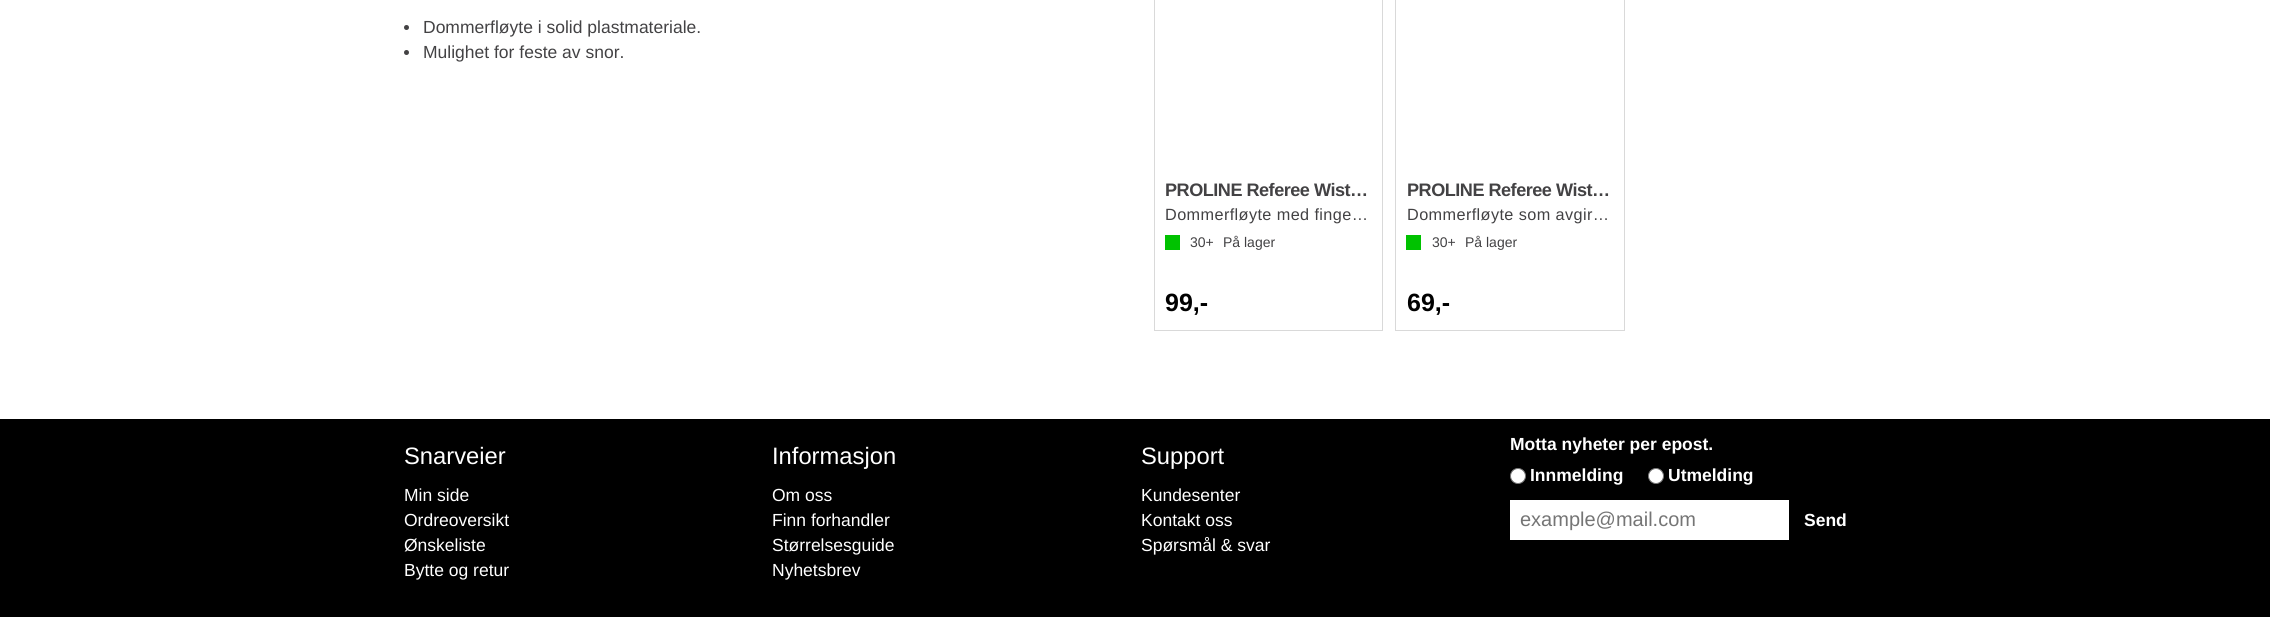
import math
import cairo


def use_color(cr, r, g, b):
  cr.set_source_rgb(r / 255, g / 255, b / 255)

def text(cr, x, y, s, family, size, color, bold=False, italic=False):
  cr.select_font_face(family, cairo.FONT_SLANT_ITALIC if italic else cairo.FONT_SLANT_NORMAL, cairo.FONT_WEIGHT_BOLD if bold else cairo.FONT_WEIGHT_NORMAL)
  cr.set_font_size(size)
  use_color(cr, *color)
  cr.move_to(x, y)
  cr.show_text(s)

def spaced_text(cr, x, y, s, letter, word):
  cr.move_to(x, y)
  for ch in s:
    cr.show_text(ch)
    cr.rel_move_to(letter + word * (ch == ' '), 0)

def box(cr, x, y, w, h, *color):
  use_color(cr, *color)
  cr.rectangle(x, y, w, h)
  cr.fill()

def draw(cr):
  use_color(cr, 255, 255, 255)
  cr.paint()
  use_color(cr, 67, 66, 68)
  cr.arc(406.5, 27.5, 2.5, 0, 2 * math.pi)
  cr.fill()
  cr.arc(406.5, 52.5, 2.5, 0, 2 * math.pi)
  cr.fill()
  cr.rectangle(1154.5, -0.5, 228, 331)
  use_color(cr, 217, 217, 217)
  cr.set_line_width(1)
  cr.stroke()
  box(cr, 1165, 235, 15, 15, 0, 194, 0)
  cr.rectangle(1395.5, -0.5, 229, 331)
  use_color(cr, 217, 217, 217)
  cr.stroke()
  box(cr, 1406, 235, 15, 15, 0, 194, 0)
  box(cr, 0, 419, 2270, 198, 0, 0, 0)
  use_color(cr, 255, 255, 255)
  cr.arc(1518, 476, 7.5, 0, 2 * math.pi)
  cr.fill_preserve()
  use_color(cr, 118, 118, 118)
  cr.stroke()
  use_color(cr, 255, 255, 255)
  cr.arc(1656, 476, 7.5, 0, 2 * math.pi)
  cr.fill_preserve()
  use_color(cr, 118, 118, 118)
  cr.stroke()
  box(cr, 1510, 500, 279, 40, 255, 255, 255)
  text(cr, 423, 33, "Dommerfløyte i solid plastmateriale.", "Liberation Sans", 17.5, (67, 66, 68))
  text(cr, 423, 58, "Mulighet for feste av snor.", "Liberation Sans", 17.5, (67, 66, 68))
  cr.select_font_face("Liberation Sans", cairo.FONT_SLANT_NORMAL, cairo.FONT_WEIGHT_BOLD)
  cr.set_font_size(18.1)
  spaced_text(cr, 1165, 196, "PROLINE Referee Wist…", -0.5, 0)
  cr.select_font_face("Liberation Sans")
  cr.set_font_size(16.25)
  spaced_text(cr, 1165, 220, "Dommerfløyte med finge…", 0.4, 0)
  text(cr, 1190, 247, "30+", "Liberation Sans", 14, (67, 66, 68))
  text(cr, 1223, 247, "På lager", "Liberation Sans", 14, (67, 66, 68))
  text(cr, 1165, 311, "99,-", "Liberation Sans", 25, (0, 0, 0), bold=True)
  cr.set_font_size(18.1)
  use_color(cr, 67, 66, 68)
  spaced_text(cr, 1407, 196, "PROLINE Referee Wist…", -0.5, 0)
  cr.select_font_face("Liberation Sans")
  cr.set_font_size(16.25)
  spaced_text(cr, 1407, 220, "Dommerfløyte som avgir…", 0.4, 0)
  text(cr, 1432, 247, "30+", "Liberation Sans", 14, (67, 66, 68))
  text(cr, 1465, 247, "På lager", "Liberation Sans", 14, (67, 66, 68))
  text(cr, 1407, 311, "69,-", "Liberation Sans", 25, (0, 0, 0), bold=True)
  text(cr, 404, 464, "Snarveier", "Liberation Sans", 23.75, (255, 255, 255))
  text(cr, 404, 501, "Min side", "Liberation Sans", 17.5, (255, 255, 255))
  text(cr, 404, 526, "Ordreoversikt", "Liberation Sans", 17.5, (255, 255, 255))
  text(cr, 404, 551, "Ønskeliste", "Liberation Sans", 17.5, (255, 255, 255))
  text(cr, 404, 576, "Bytte og retur", "Liberation Sans", 17.5, (255, 255, 255))
  text(cr, 772, 464, "Informasjon", "Liberation Sans", 23.75, (255, 255, 255))
  text(cr, 772, 501, "Om oss", "Liberation Sans", 17.5, (255, 255, 255))
  text(cr, 772, 526, "Finn forhandler", "Liberation Sans", 17.5, (255, 255, 255))
  text(cr, 772, 551, "Størrelsesguide", "Liberation Sans", 17.5, (255, 255, 255))
  text(cr, 772, 576, "Nyhetsbrev", "Liberation Sans", 17.5, (255, 255, 255))
  text(cr, 1141, 464, "Support", "Liberation Sans", 23.75, (255, 255, 255))
  text(cr, 1141, 501, "Kundesenter", "Liberation Sans", 17.5, (255, 255, 255))
  text(cr, 1141, 526, "Kontakt oss", "Liberation Sans", 17.5, (255, 255, 255))
  text(cr, 1141, 551, "Spørsmål & svar", "Liberation Sans", 17.5, (255, 255, 255))
  text(cr, 1510, 450, "Motta nyheter per epost.", "Liberation Sans", 17.5, (255, 255, 255), bold=True)
  text(cr, 1530, 481, "Innmelding", "Liberation Sans", 17.5, (255, 255, 255), bold=True)
  text(cr, 1668, 481, "Utmelding", "Liberation Sans", 17.5, (255, 255, 255), bold=True)
  text(cr, 1520, 526, "example@mail.com", "Liberation Sans", 20, (117, 117, 117))
  text(cr, 1804, 526, "Send", "Liberation Sans", 17.5, (255, 255, 255), bold=True)


surface = cairo.ImageSurface(cairo.FORMAT_RGB24, 2270, 617)
cr = cairo.Context(surface)
options = cairo.FontOptions()
options.set_hint_metrics(cairo.HINT_METRICS_OFF)
options.set_hint_style(cairo.HINT_STYLE_NONE)
cr.set_font_options(options)
cr.set_miter_limit(4)
draw(cr)
surface.write_to_png("out.png")
